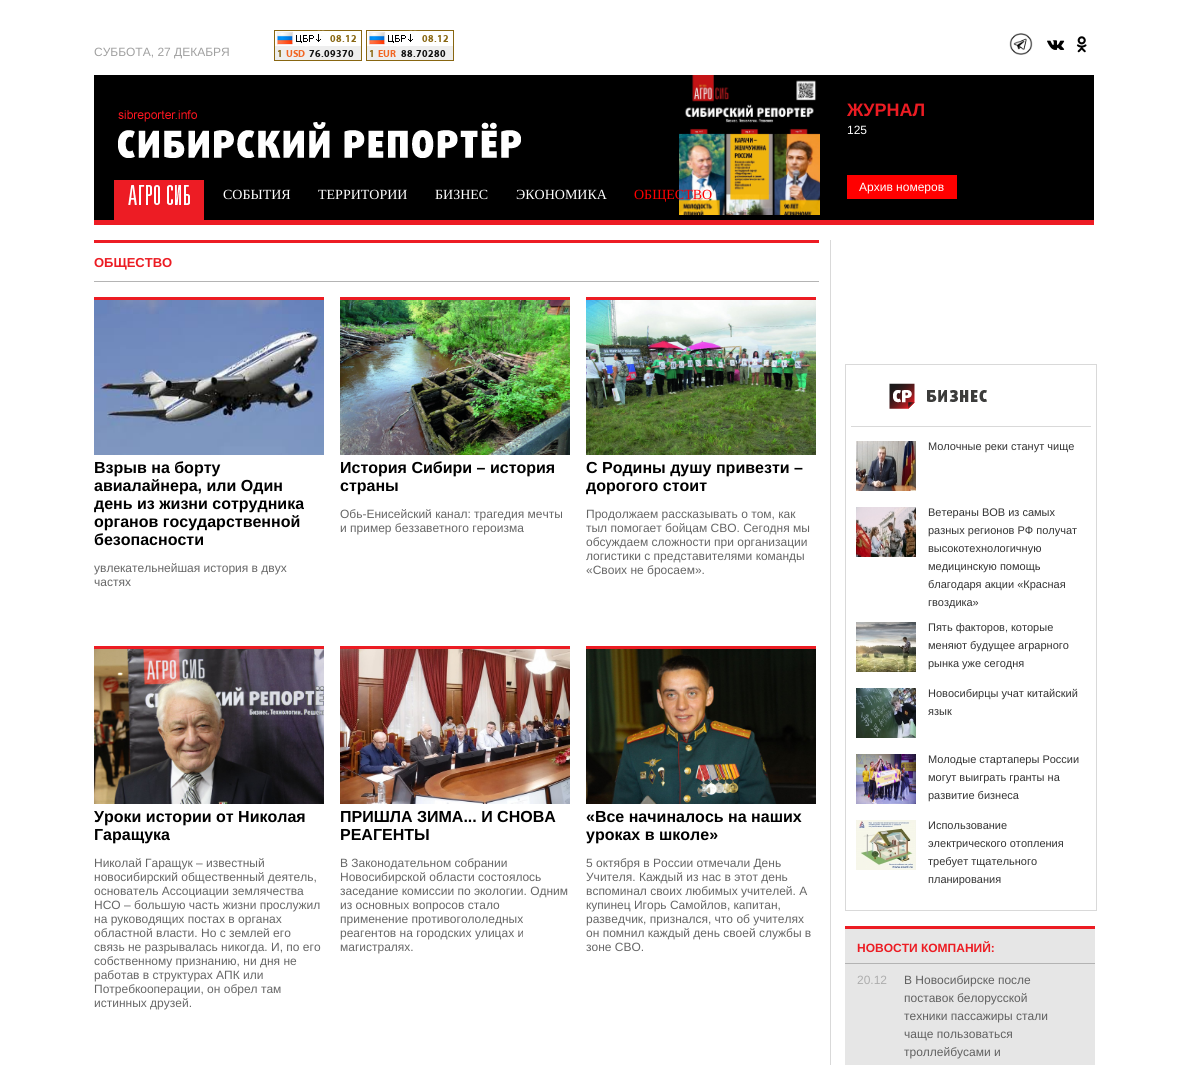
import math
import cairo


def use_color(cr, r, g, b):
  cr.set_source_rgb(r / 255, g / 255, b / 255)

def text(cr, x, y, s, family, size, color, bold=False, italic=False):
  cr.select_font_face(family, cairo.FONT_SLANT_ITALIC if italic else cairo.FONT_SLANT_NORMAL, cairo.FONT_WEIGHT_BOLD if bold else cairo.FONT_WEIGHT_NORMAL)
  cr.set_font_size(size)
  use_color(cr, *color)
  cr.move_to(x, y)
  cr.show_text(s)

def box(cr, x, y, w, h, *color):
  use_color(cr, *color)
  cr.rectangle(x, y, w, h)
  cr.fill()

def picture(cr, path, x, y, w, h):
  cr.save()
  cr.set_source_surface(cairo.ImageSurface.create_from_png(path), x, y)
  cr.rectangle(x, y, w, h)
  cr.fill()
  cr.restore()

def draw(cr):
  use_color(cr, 255, 255, 255)
  cr.paint()
  box(cr, 94, 75, 1000, 145, 0, 0, 0)
  picture(cr, "img_01.png", 274, 30, 88, 31)
  picture(cr, "img_02.png", 366, 30, 88, 31)
  picture(cr, "img_03.png", 1009, 33, 24, 22)
  picture(cr, "img_04.png", 1047, 40, 18, 10)
  picture(cr, "img_05.png", 1076, 36, 11, 17)
  picture(cr, "img_06.png", 118, 110, 403, 48)
  picture(cr, "img_07.png", 679, 75, 141, 140)
  box(cr, 847, 175, 110, 24, 255, 0, 0)
  box(cr, 94, 220, 1000, 5, 237, 28, 36)
  box(cr, 114, 180, 90, 40, 237, 28, 36)
  picture(cr, "img_08.png", 128, 185, 62, 20)
  box(cr, 94, 240, 725, 3, 237, 28, 36)
  box(cr, 94, 281, 725, 1, 180, 180, 180)
  box(cr, 94, 297, 230, 3, 236, 28, 35)
  picture(cr, "img_09.png", 94, 300, 230, 155)
  box(cr, 340, 297, 230, 3, 236, 28, 35)
  picture(cr, "img_10.png", 340, 300, 230, 155)
  box(cr, 586, 297, 230, 3, 236, 28, 35)
  picture(cr, "img_11.png", 586, 300, 230, 155)
  box(cr, 94, 646, 230, 3, 236, 28, 35)
  picture(cr, "img_12.png", 94, 649, 230, 155)
  box(cr, 340, 646, 230, 3, 236, 28, 35)
  picture(cr, "img_13.png", 340, 649, 230, 155)
  box(cr, 586, 646, 230, 3, 236, 28, 35)
  picture(cr, "img_14.png", 586, 649, 230, 155)
  box(cr, 830, 240, 1, 825, 217, 217, 217)
  cr.rectangle(845.5, 364.5, 251, 546)
  cr.set_line_width(1)
  cr.stroke()
  box(cr, 851, 426, 240, 1, 217, 217, 217)
  picture(cr, "img_15.png", 889, 383, 98, 26)
  picture(cr, "img_16.png", 856, 441, 60, 50)
  picture(cr, "img_17.png", 856, 507, 60, 50)
  picture(cr, "img_18.png", 856, 622, 60, 50)
  picture(cr, "img_19.png", 856, 688, 60, 50)
  picture(cr, "img_20.png", 856, 754, 60, 50)
  picture(cr, "img_21.png", 856, 820, 60, 50)
  box(cr, 845, 929, 250, 136, 230, 230, 230)
  box(cr, 845, 926, 250, 3, 236, 28, 35)
  box(cr, 845, 963, 250, 1, 179, 179, 179)
  text(cr, 94, 56, "СУББОТА, 27 ДЕКАБРЯ", "Liberation Sans", 12, (160, 160, 160))
  text(cr, 847, 116, "ЖУРНАЛ", "Liberation Sans", 18, (236, 28, 35), bold=True)
  text(cr, 847, 134, "125", "Liberation Sans", 12, (255, 255, 255))
  text(cr, 859, 191, "Архив номеров", "Liberation Sans", 12, (255, 255, 255))
  text(cr, 223, 199, "СОБЫТИЯ", "Liberation Serif", 14, (255, 255, 255))
  text(cr, 318, 199, "ТЕРРИТОРИИ", "Liberation Serif", 14, (255, 255, 255))
  text(cr, 435, 199, "БИЗНЕС", "Liberation Serif", 14, (255, 255, 255))
  text(cr, 516, 199, "ЭКОНОМИКА", "Liberation Serif", 14, (255, 255, 255))
  text(cr, 634, 199, "ОБЩЕСТВО", "Liberation Serif", 14, (255, 0, 0))
  text(cr, 94, 267, "ОБЩЕСТВО", "Liberation Sans", 13, (236, 28, 35), bold=True)
  text(cr, 94, 473, "Взрыв на борту", "Liberation Sans", 16, (0, 0, 0), bold=True)
  text(cr, 94, 491, "авиалайнера, или Один", "Liberation Sans", 16, (0, 0, 0), bold=True)
  text(cr, 94, 509, "день из жизни сотрудника", "Liberation Sans", 16, (0, 0, 0), bold=True)
  text(cr, 94, 527, "органов государственной", "Liberation Sans", 16, (0, 0, 0), bold=True)
  text(cr, 94, 545, "безопасности", "Liberation Sans", 16, (0, 0, 0), bold=True)
  text(cr, 94, 572, "увлекательнейшая история в двух", "Liberation Sans", 12, (102, 102, 102))
  text(cr, 94, 586, "частях", "Liberation Sans", 12, (102, 102, 102))
  text(cr, 340, 473, "История Сибири – история", "Liberation Sans", 16, (0, 0, 0), bold=True)
  text(cr, 340, 491, "страны", "Liberation Sans", 16, (0, 0, 0), bold=True)
  text(cr, 340, 518, "Обь-Енисейский канал: трагедия мечты", "Liberation Sans", 12, (102, 102, 102))
  text(cr, 340, 532, "и пример беззаветного героизма", "Liberation Sans", 12, (102, 102, 102))
  text(cr, 586, 473, "С Родины душу привезти –", "Liberation Sans", 16, (0, 0, 0), bold=True)
  text(cr, 586, 491, "дорогого стоит", "Liberation Sans", 16, (0, 0, 0), bold=True)
  text(cr, 586, 518, "Продолжаем рассказывать о том, как", "Liberation Sans", 12, (102, 102, 102))
  text(cr, 586, 532, "тыл помогает бойцам СВО. Сегодня мы", "Liberation Sans", 12, (102, 102, 102))
  text(cr, 586, 546, "обсуждаем сложности при организации", "Liberation Sans", 12, (102, 102, 102))
  text(cr, 586, 560, "логистики с представителями команды", "Liberation Sans", 12, (102, 102, 102))
  text(cr, 586, 574, "«Своих не бросаем».", "Liberation Sans", 12, (102, 102, 102))
  text(cr, 94, 822, "Уроки истории от Николая", "Liberation Sans", 16, (0, 0, 0), bold=True)
  text(cr, 94, 840, "Гаращука", "Liberation Sans", 16, (0, 0, 0), bold=True)
  text(cr, 94, 867, "Николай Гаращук – известный", "Liberation Sans", 12, (102, 102, 102))
  text(cr, 94, 881, "новосибирский общественный деятель,", "Liberation Sans", 12, (102, 102, 102))
  text(cr, 94, 895, "основатель Ассоциации землячества", "Liberation Sans", 12, (102, 102, 102))
  text(cr, 94, 909, "НСО – большую часть жизни прослужил", "Liberation Sans", 12, (102, 102, 102))
  text(cr, 94, 923, "на руководящих постах в органах", "Liberation Sans", 12, (102, 102, 102))
  text(cr, 94, 937, "областной власти. Но с землей его", "Liberation Sans", 12, (102, 102, 102))
  text(cr, 94, 951, "связь не разрывалась никогда. И, по его", "Liberation Sans", 12, (102, 102, 102))
  text(cr, 94, 965, "собственному признанию, ни дня не", "Liberation Sans", 12, (102, 102, 102))
  text(cr, 94, 979, "работав в структурах АПК или", "Liberation Sans", 12, (102, 102, 102))
  text(cr, 94, 993, "Потребкооперации, он обрел там", "Liberation Sans", 12, (102, 102, 102))
  text(cr, 94, 1007, "истинных друзей.", "Liberation Sans", 12, (102, 102, 102))
  text(cr, 340, 822, "ПРИШЛА ЗИМА... И СНОВА", "Liberation Sans", 16, (0, 0, 0), bold=True)
  text(cr, 340, 840, "РЕАГЕНТЫ", "Liberation Sans", 16, (0, 0, 0), bold=True)
  text(cr, 340, 867, "В Законодательном собрании", "Liberation Sans", 12, (102, 102, 102))
  text(cr, 340, 881, "Новосибирской области состоялось", "Liberation Sans", 12, (102, 102, 102))
  text(cr, 340, 895, "заседание комиссии по экологии. Одним", "Liberation Sans", 12, (102, 102, 102))
  text(cr, 340, 909, "из основных вопросов стало", "Liberation Sans", 12, (102, 102, 102))
  text(cr, 340, 923, "применение противогололедных", "Liberation Sans", 12, (102, 102, 102))
  text(cr, 340, 937, "реагентов на городских улицах и", "Liberation Sans", 12, (102, 102, 102))
  text(cr, 340, 951, "магистралях.", "Liberation Sans", 12, (102, 102, 102))
  text(cr, 586, 822, "«Все начиналось на наших", "Liberation Sans", 16, (0, 0, 0), bold=True)
  text(cr, 586, 840, "уроках в школе»", "Liberation Sans", 16, (0, 0, 0), bold=True)
  text(cr, 586, 867, "5 октября в России отмечали День", "Liberation Sans", 12, (102, 102, 102))
  text(cr, 586, 881, "Учителя. Каждый из нас в этот день", "Liberation Sans", 12, (102, 102, 102))
  text(cr, 586, 895, "вспоминал своих любимых учителей. А", "Liberation Sans", 12, (102, 102, 102))
  text(cr, 586, 909, "купинец Игорь Самойлов, капитан,", "Liberation Sans", 12, (102, 102, 102))
  text(cr, 586, 923, "разведчик, признался, что об учителях", "Liberation Sans", 12, (102, 102, 102))
  text(cr, 586, 937, "он помнил каждый день своей службы в", "Liberation Sans", 12, (102, 102, 102))
  text(cr, 586, 951, "зоне СВО.", "Liberation Sans", 12, (102, 102, 102))
  text(cr, 928, 450, "Молочные реки станут чище", "Liberation Sans", 11, (51, 51, 51))
  text(cr, 928, 516, "Ветераны ВОВ из самых", "Liberation Sans", 11, (51, 51, 51))
  text(cr, 928, 534, "разных регионов РФ получат", "Liberation Sans", 11, (51, 51, 51))
  text(cr, 928, 552, "высокотехнологичную", "Liberation Sans", 11, (51, 51, 51))
  text(cr, 928, 570, "медицинскую помощь", "Liberation Sans", 11, (51, 51, 51))
  text(cr, 928, 588, "благодаря акции «Красная", "Liberation Sans", 11, (51, 51, 51))
  text(cr, 928, 606, "гвоздика»", "Liberation Sans", 11, (51, 51, 51))
  text(cr, 928, 631, "Пять факторов, которые", "Liberation Sans", 11, (51, 51, 51))
  text(cr, 928, 649, "меняют будущее аграрного", "Liberation Sans", 11, (51, 51, 51))
  text(cr, 928, 667, "рынка уже сегодня", "Liberation Sans", 11, (51, 51, 51))
  text(cr, 928, 697, "Новосибирцы учат китайский", "Liberation Sans", 11, (51, 51, 51))
  text(cr, 928, 715, "язык", "Liberation Sans", 11, (51, 51, 51))
  text(cr, 928, 763, "Молодые стартаперы России", "Liberation Sans", 11, (51, 51, 51))
  text(cr, 928, 781, "могут выиграть гранты на", "Liberation Sans", 11, (51, 51, 51))
  text(cr, 928, 799, "развитие бизнеса", "Liberation Sans", 11, (51, 51, 51))
  text(cr, 928, 829, "Использование", "Liberation Sans", 11, (51, 51, 51))
  text(cr, 928, 847, "электрического отопления", "Liberation Sans", 11, (51, 51, 51))
  text(cr, 928, 865, "требует тщательного", "Liberation Sans", 11, (51, 51, 51))
  text(cr, 928, 883, "планирования", "Liberation Sans", 11, (51, 51, 51))
  text(cr, 857, 952, "НОВОСТИ КОМПАНИЙ:", "Liberation Sans", 12, (236, 28, 35), bold=True)
  text(cr, 857, 984, "20.12", "Liberation Sans", 12, (173, 173, 173))
  text(cr, 904, 984, "В Новосибирске после", "Liberation Sans", 12, (96, 96, 96))
  text(cr, 904, 1002, "поставок белорусской", "Liberation Sans", 12, (96, 96, 96))
  text(cr, 904, 1020, "техники пассажиры стали", "Liberation Sans", 12, (96, 96, 96))
  text(cr, 904, 1038, "чаще пользоваться", "Liberation Sans", 12, (96, 96, 96))
  text(cr, 904, 1056, "троллейбусами и", "Liberation Sans", 12, (96, 96, 96))


surface = cairo.ImageSurface(cairo.FORMAT_RGB24, 1187, 1065)
cr = cairo.Context(surface)
options = cairo.FontOptions()
options.set_hint_metrics(cairo.HINT_METRICS_OFF)
options.set_hint_style(cairo.HINT_STYLE_NONE)
cr.set_font_options(options)
cr.set_miter_limit(4)
draw(cr)
surface.write_to_png("out.png")
